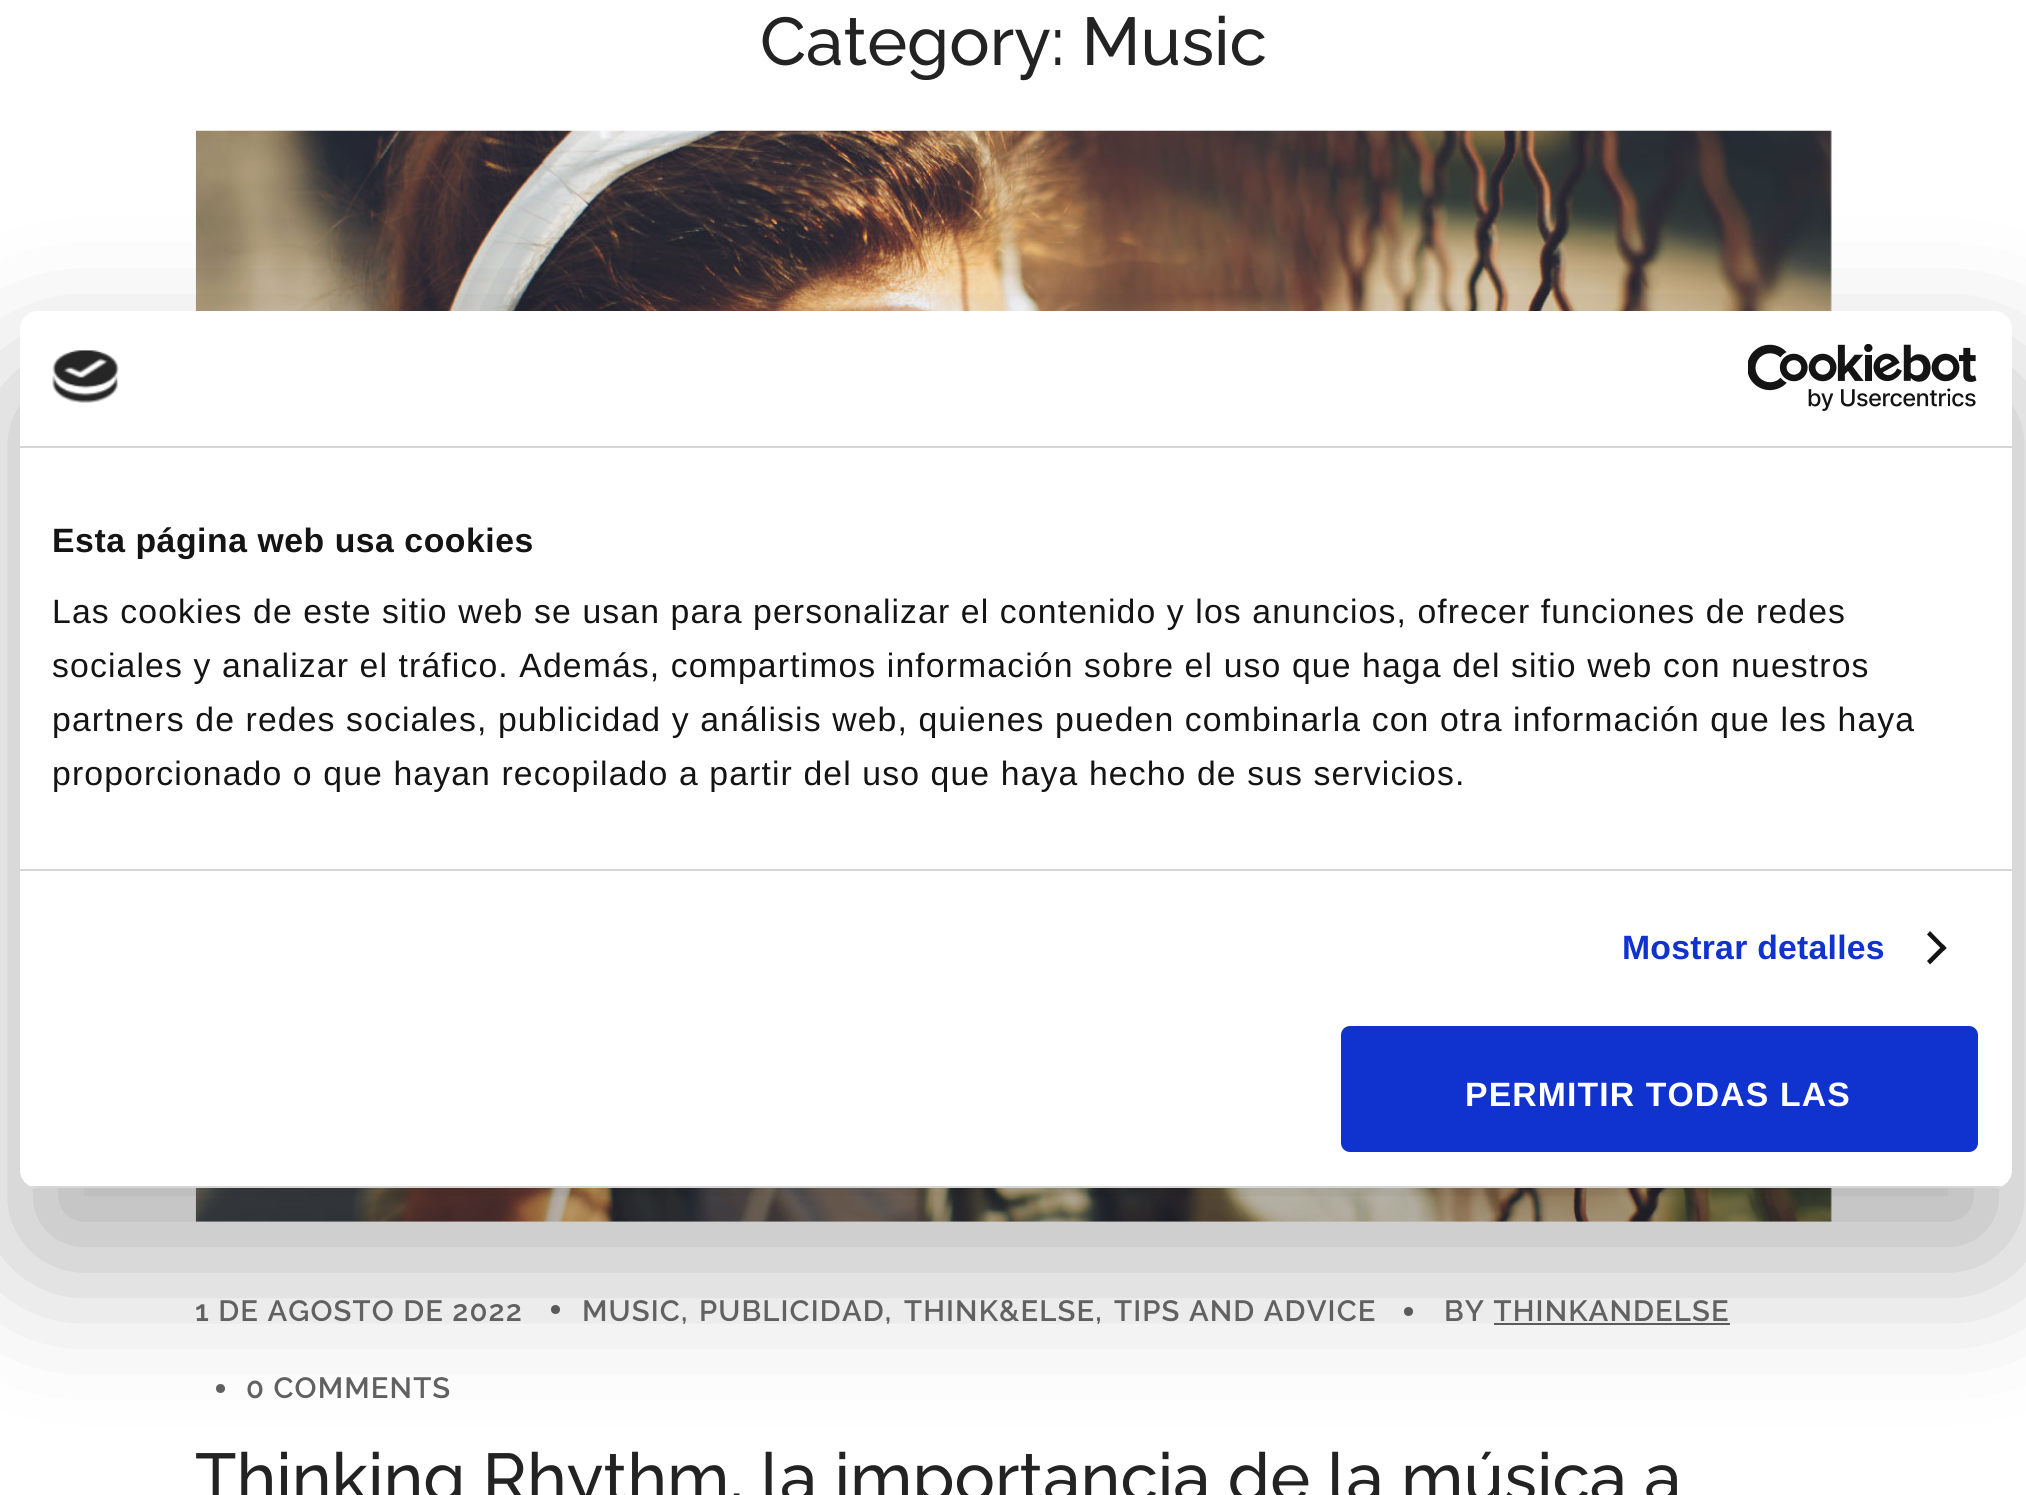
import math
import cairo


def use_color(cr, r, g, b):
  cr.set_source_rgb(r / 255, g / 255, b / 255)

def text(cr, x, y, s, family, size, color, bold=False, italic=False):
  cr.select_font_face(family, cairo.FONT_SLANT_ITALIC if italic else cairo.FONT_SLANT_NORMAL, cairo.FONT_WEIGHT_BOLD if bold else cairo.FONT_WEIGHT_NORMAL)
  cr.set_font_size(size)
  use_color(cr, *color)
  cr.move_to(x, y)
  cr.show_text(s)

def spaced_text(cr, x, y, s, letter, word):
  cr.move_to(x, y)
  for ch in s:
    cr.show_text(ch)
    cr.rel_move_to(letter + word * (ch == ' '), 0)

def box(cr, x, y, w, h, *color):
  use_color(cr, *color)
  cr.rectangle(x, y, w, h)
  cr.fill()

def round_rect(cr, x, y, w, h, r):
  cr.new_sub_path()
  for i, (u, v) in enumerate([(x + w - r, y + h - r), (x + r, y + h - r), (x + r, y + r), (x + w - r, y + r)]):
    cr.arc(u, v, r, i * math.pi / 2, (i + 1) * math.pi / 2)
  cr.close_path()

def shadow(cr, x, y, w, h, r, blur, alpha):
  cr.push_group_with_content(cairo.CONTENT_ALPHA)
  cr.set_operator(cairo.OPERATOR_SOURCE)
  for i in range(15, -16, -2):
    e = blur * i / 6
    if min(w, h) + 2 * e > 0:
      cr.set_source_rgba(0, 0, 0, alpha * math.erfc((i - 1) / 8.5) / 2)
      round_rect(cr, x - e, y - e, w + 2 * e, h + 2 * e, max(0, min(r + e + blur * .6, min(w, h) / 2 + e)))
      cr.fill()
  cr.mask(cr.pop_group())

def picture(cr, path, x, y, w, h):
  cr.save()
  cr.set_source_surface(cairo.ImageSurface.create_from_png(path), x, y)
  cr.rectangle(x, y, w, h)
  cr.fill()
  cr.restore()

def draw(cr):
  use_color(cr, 255, 255, 255)
  cr.paint()
  picture(cr, "img_01.png", 195, 130, 1637, 1092)
  use_color(cr, 97, 97, 97)
  cr.arc(555.5, 1309.5, 4.5, 0, 2 * math.pi)
  cr.fill()
  cr.arc(1408.5, 1311.5, 4.5, 0, 2 * math.pi)
  cr.fill()
  box(cr, 1494, 1323, 236, 2, 97, 97, 97)
  cr.arc(220.5, 1388.5, 4.5, 0, 2 * math.pi)
  cr.fill()
  use_color(cr, 0, 0, 0)
  shadow(cr, 20, 383, 1992, 877, 18, 76.5, 0.3)
  use_color(cr, 255, 255, 255)
  round_rect(cr, 20, 311, 1992, 877, 18)
  cr.fill()
  box(cr, 20, 446, 1992, 2, 214, 214, 214)
  picture(cr, "img_02.png", 52, 350, 67, 53)
  picture(cr, "img_03.png", 1748, 344, 229, 67)
  box(cr, 20, 869, 1992, 2, 214, 214, 214)
  use_color(cr, 20, 20, 20)
  cr.new_path()
  cr.move_to(1930, 931)
  cr.line_to(1946.5, 948)
  cr.line_to(1943.5, 951)
  cr.line_to(1927, 934.5)
  cr.close_path()
  cr.fill()
  cr.new_path()
  cr.move_to(1943.5, 944.5)
  cr.line_to(1946.5, 948)
  cr.line_to(1930, 964.5)
  cr.line_to(1927, 961)
  cr.close_path()
  cr.fill()
  cr.save()
  round_rect(cr, 20, 311, 1992, 877, 18)
  cr.clip()
  box(cr, 30, 1186, 1972, 2, 214, 214, 214)
  cr.restore()
  use_color(cr, 16, 50, 207)
  round_rect(cr, 1343.5, 1028.5, 632, 121, 6.5)
  cr.fill_preserve()
  cr.set_line_width(5)
  cr.stroke()
  text(cr, 760, 65, "Category: Music", "Raleway Thin", 67.5, (35, 35, 35))
  cr.select_font_face("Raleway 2 Thin")
  cr.set_font_size(29.25)
  use_color(cr, 97, 97, 97)
  spaced_text(cr, 195, 1321, "1 DE AGOSTO DE 2022", 1.12, 0)
  spaced_text(cr, 582, 1321, "MUSIC,", 1.12, 0)
  spaced_text(cr, 699, 1321, "PUBLICIDAD,", 1.12, 0)
  spaced_text(cr, 904, 1321, "THINK&ELSE,", 1.12, 0)
  spaced_text(cr, 1114, 1321, "TIPS AND ADVICE", 1.12, 0)
  spaced_text(cr, 1444, 1321, "BY THINKANDELSE", 1.12, 0)
  spaced_text(cr, 246, 1398, "0 COMMENTS", 1.12, 0)
  text(cr, 195, 1501, "Thinking Rhythm, la importancia de la música a", "Raleway Thin", 67.5, (35, 35, 35))
  cr.select_font_face("Liberation Sans", cairo.FONT_SLANT_NORMAL, cairo.FONT_WEIGHT_BOLD)
  cr.set_font_size(33.75)
  use_color(cr, 20, 20, 20)
  spaced_text(cr, 52, 552, "Esta página web usa cookies", 0.55, 0)
  cr.select_font_face("Liberation Sans")
  spaced_text(cr, 52, 623, "Las cookies de este sitio web se usan para personalizar el contenido y los anuncios, ofrecer funciones de redes", 1.12, 0)
  spaced_text(cr, 52, 677, "sociales y analizar el tráfico. Además, compartimos información sobre el uso que haga del sitio web con nuestros", 1.12, 0)
  spaced_text(cr, 52, 731, "partners de redes sociales, publicidad y análisis web, quienes pueden combinarla con otra información que les haya", 1.12, 0)
  spaced_text(cr, 52, 785, "proporcionado o que hayan recopilado a partir del uso que haya hecho de sus servicios.", 1.12, 0)
  cr.select_font_face("Liberation Sans", cairo.FONT_SLANT_NORMAL, cairo.FONT_WEIGHT_BOLD)
  use_color(cr, 16, 50, 207)
  spaced_text(cr, 1622, 959, "Mostrar detalles", 0.25, 0)
  use_color(cr, 255, 255, 255)
  spaced_text(cr, 1465, 1106, "PERMITIR TODAS LAS", 1.12, 0)


surface = cairo.ImageSurface(cairo.FORMAT_RGB24, 2026, 1495)
cr = cairo.Context(surface)
options = cairo.FontOptions()
options.set_hint_metrics(cairo.HINT_METRICS_OFF)
options.set_hint_style(cairo.HINT_STYLE_NONE)
cr.set_font_options(options)
cr.set_miter_limit(4)
draw(cr)
surface.write_to_png("out.png")
